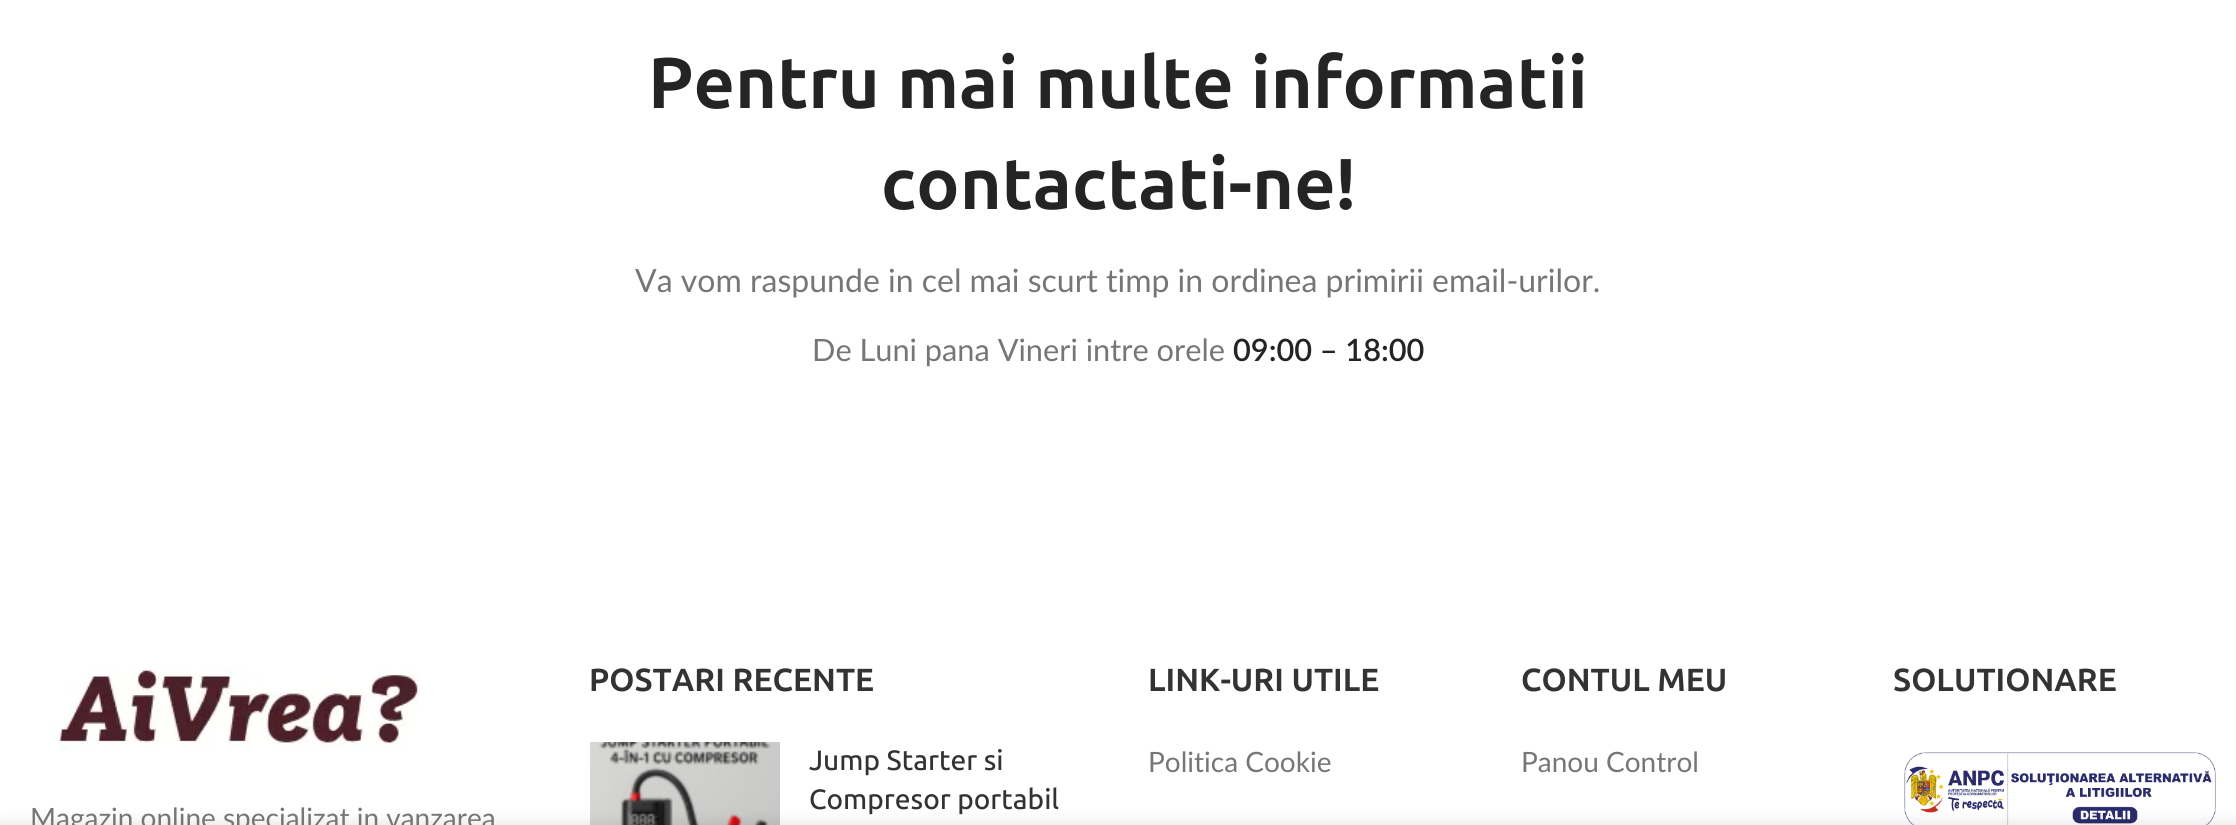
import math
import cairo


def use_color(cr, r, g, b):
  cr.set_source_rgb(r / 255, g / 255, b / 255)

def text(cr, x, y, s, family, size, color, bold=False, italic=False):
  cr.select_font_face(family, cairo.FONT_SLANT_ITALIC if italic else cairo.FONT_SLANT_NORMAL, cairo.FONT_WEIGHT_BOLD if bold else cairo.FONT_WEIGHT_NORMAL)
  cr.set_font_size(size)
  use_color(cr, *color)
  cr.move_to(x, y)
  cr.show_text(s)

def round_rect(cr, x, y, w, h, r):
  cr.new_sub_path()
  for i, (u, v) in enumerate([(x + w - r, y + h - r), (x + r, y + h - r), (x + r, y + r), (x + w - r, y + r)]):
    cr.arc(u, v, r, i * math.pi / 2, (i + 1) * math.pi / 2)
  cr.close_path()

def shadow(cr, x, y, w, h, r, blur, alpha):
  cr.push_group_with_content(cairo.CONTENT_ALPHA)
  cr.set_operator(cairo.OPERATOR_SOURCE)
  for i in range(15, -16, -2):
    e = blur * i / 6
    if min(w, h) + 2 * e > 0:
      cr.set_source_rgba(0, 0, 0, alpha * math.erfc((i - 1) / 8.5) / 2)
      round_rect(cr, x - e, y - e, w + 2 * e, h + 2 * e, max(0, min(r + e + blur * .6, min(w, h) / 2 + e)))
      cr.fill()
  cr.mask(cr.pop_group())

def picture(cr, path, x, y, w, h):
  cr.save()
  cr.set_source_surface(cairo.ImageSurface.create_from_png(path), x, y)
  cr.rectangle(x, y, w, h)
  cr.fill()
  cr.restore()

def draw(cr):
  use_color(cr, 255, 255, 255)
  cr.paint()
  picture(cr, "img_01.png", 590, 742, 190, 83)
  picture(cr, "img_02.png", 1904, 752, 312, 73)
  picture(cr, "img_03.png", 55, 669, 364, 81)
  use_color(cr, 0, 0, 0)
  shadow(cr, 0, 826, 2236, 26, 0, 9, 0.14)
  text(cr, 648, 108, "Pentru mai multe informatii", "Ubuntu", 72, (36, 36, 36), bold=True)
  text(cr, 881, 209, "contactati-ne!", "Ubuntu", 72, (36, 36, 36), bold=True)
  text(cr, 635, 292, "Va vom raspunde in cel mai scurt timp in ordinea primirii email-urilor.", "Lato", 32, (118, 118, 118))
  text(cr, 812, 361, "De Luni pana Vineri intre orele", "Lato", 30.75, (118, 118, 118))
  text(cr, 1233, 361, "09:00 – 18:00", "Lato SemiBold", 30.75, (36, 36, 36))
  text(cr, 589, 691, "POSTARI RECENTE", "Ubuntu", 32, (51, 51, 51), bold=True)
  text(cr, 809, 770, "Jump Starter si", "Ubuntu Medium", 28, (51, 51, 51))
  text(cr, 809, 809, "Compresor portabil", "Ubuntu Medium", 28, (51, 51, 51))
  text(cr, 1148, 691, "LINK-URI UTILE", "Ubuntu", 32, (51, 51, 51), bold=True)
  text(cr, 1148, 772, "Politica Cookie", "Lato", 28, (118, 118, 118))
  text(cr, 1521, 691, "CONTUL MEU", "Ubuntu", 32, (51, 51, 51), bold=True)
  text(cr, 1521, 772, "Panou Control", "Lato", 28, (118, 118, 118))
  text(cr, 1893, 691, "SOLUTIONARE", "Ubuntu", 32, (51, 51, 51), bold=True)
  text(cr, 30, 828, "Magazin online specializat in vanzarea", "Lato", 28, (118, 118, 118))


surface = cairo.ImageSurface(cairo.FORMAT_RGB24, 2236, 825)
cr = cairo.Context(surface)
options = cairo.FontOptions()
options.set_hint_metrics(cairo.HINT_METRICS_OFF)
options.set_hint_style(cairo.HINT_STYLE_NONE)
cr.set_font_options(options)
cr.set_miter_limit(4)
draw(cr)
surface.write_to_png("out.png")
